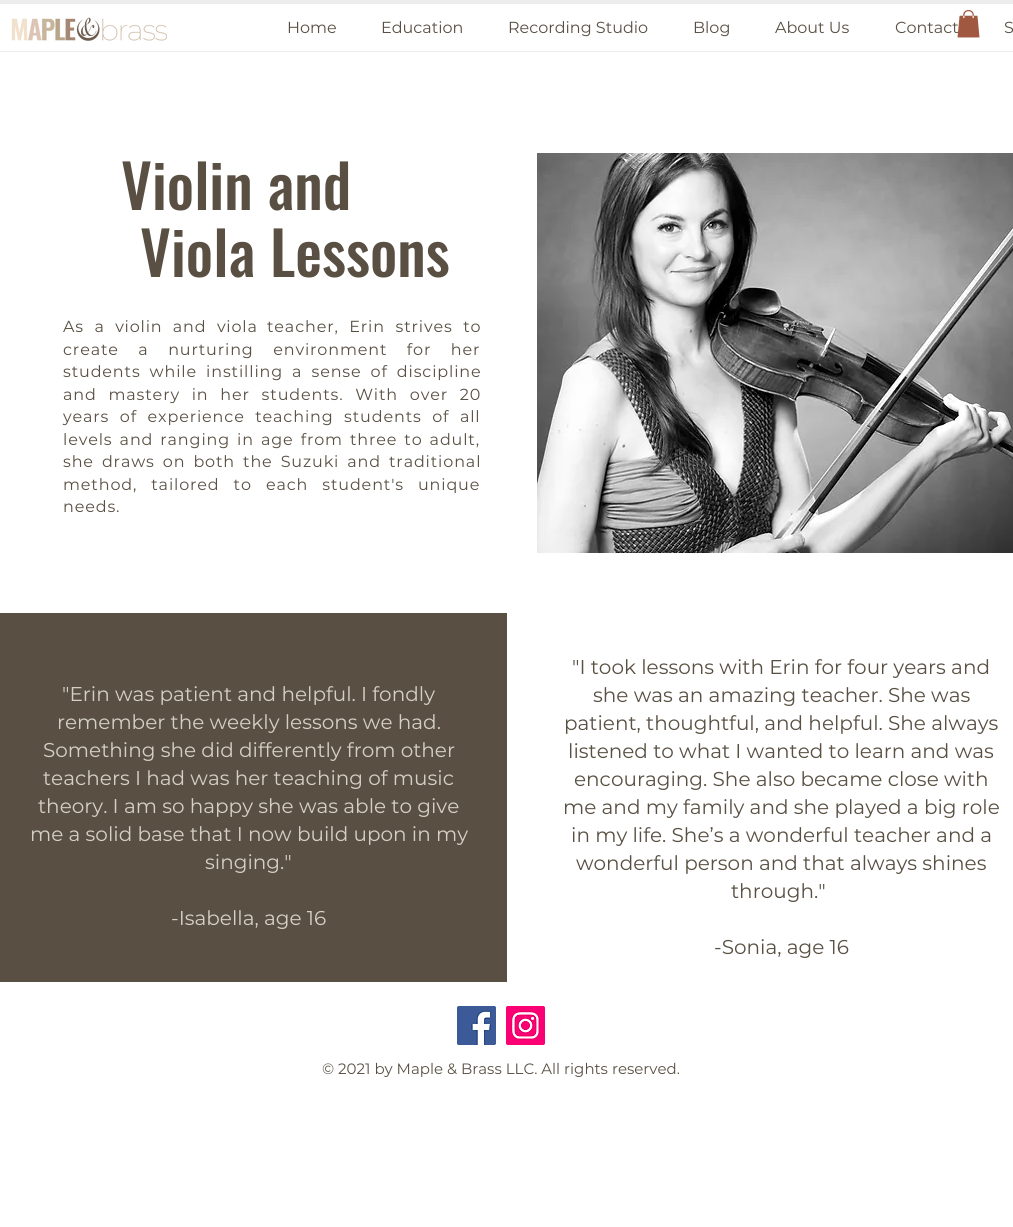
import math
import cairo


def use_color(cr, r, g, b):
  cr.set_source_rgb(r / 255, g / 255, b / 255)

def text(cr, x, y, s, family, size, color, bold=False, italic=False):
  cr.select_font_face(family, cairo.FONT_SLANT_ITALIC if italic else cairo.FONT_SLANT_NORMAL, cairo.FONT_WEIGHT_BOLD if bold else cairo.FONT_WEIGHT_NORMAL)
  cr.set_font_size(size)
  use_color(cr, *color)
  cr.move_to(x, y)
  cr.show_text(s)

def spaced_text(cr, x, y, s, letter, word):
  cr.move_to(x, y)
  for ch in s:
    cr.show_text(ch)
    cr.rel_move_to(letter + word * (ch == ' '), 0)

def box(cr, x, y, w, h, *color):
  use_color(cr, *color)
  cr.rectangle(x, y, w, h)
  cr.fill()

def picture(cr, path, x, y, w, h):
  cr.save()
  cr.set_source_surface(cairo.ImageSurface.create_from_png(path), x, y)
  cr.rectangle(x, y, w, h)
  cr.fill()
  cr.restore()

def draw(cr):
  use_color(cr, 255, 255, 255)
  cr.paint()
  box(cr, 0, 0, 1013, 52, 237, 237, 238)
  box(cr, 0, 4, 1013, 47, 255, 255, 255)
  picture(cr, "img_02.png", 11, 17, 156, 24)
  picture(cr, "img_03.png", 537, 153, 476, 400)
  box(cr, 0, 613, 507, 369, 89, 80, 67)
  picture(cr, "img_04.png", 457, 1006, 39, 39)
  picture(cr, "img_05.png", 506, 1006, 39, 39)
  text(cr, 287, 33, "Home", "Montserrat", 16, (89, 80, 67))
  text(cr, 381, 33, "Education", "Montserrat", 16, (89, 80, 67))
  text(cr, 508, 33, "Recording Studio", "Montserrat", 16, (89, 80, 67))
  text(cr, 693, 33, "Blog", "Montserrat", 16, (89, 80, 67))
  text(cr, 775, 33, "About Us", "Montserrat", 16, (89, 80, 67))
  text(cr, 895, 33, "Contact", "Montserrat", 16, (89, 80, 67))
  picture(cr, "img_01.png", 957, 10, 23, 28)
  text(cr, 1004, 33, "S", "Montserrat", 16, (89, 80, 67))
  text(cr, 121, 210, "Violin and", "Oswald Medium", 60, (89, 80, 67))
  text(cr, 140, 277, "Viola Lessons", "Oswald Medium", 60, (89, 80, 67))
  cr.select_font_face("Montserrat")
  cr.set_font_size(16)
  spaced_text(cr, 63, 332, "As a violin and viola", 0.8, 5.5)
  spaced_text(cr, 267, 332, "teacher, Erin strives to", 0.85, 5.5)
  spaced_text(cr, 63, 355, "create a nurturing environment for her", 0.85, 14.5)
  spaced_text(cr, 63, 377, "students while instilling a sense of discipline", 0.85, 4)
  spaced_text(cr, 63, 400, "and mastery in her students. With over 20", 0.85, 6.75)
  spaced_text(cr, 63, 422, "years of experience teaching students of all", 0.85, 5.5)
  spaced_text(cr, 63, 445, "levels and ranging in age from three to adult,", 0.85, 2)
  spaced_text(cr, 63, 467, "she draws on both the Suzuki and traditional", 0.85, 3)
  spaced_text(cr, 63, 490, "method, tailored to each student's unique", 0.85, 9)
  spaced_text(cr, 63, 512, "needs.", 0.85, 0)
  text(cr, 62, 701, "\"Erin was patient and helpful. I fondly", "Montserrat", 20, (214, 207, 197))
  text(cr, 57, 729, "remember the weekly lessons we had.", "Montserrat", 20, (214, 207, 197))
  text(cr, 43, 757, "Something she did differently from other", "Montserrat", 20, (214, 207, 197))
  text(cr, 43, 785, "teachers I had was her teaching of music", "Montserrat", 20, (214, 207, 197))
  text(cr, 38, 813, "theory. I am so happy she was able to give", "Montserrat", 20, (214, 207, 197))
  text(cr, 30, 841, "me a solid base that I now build upon in my", "Montserrat", 20, (214, 207, 197))
  text(cr, 205, 869, "singing.\"", "Montserrat", 20, (214, 207, 197))
  text(cr, 171, 925, "-Isabella, age 16", "Montserrat", 20, (214, 207, 197))
  text(cr, 572, 674, "\"I took lessons with Erin for four years and", "Montserrat", 20, (89, 80, 67))
  text(cr, 593, 702, "she was an amazing teacher. She was", "Montserrat", 20, (89, 80, 67))
  text(cr, 564, 730, "patient, thoughtful, and helpful. She always", "Montserrat", 20, (89, 80, 67))
  text(cr, 568, 758, "listened to what I wanted to learn and was", "Montserrat", 20, (89, 80, 67))
  text(cr, 574, 786, "encouraging. She also became close with", "Montserrat", 20, (89, 80, 67))
  text(cr, 563, 814, "me and my family and she played a big role", "Montserrat", 20, (89, 80, 67))
  text(cr, 571, 842, "in my life. She’s a wonderful teacher and a", "Montserrat", 20, (89, 80, 67))
  text(cr, 576, 870, "wonderful person and that always shines", "Montserrat", 20, (89, 80, 67))
  text(cr, 731, 898, "through.\"", "Montserrat", 20, (89, 80, 67))
  text(cr, 714, 954, "-Sonia, age 16", "Montserrat", 20, (89, 80, 67))
  text(cr, 322, 1074, "© 2021 by Maple & Brass LLC. All rights reserved.", "Montserrat", 15, (89, 80, 67))


surface = cairo.ImageSurface(cairo.FORMAT_RGB24, 1013, 1227)
cr = cairo.Context(surface)
options = cairo.FontOptions()
options.set_hint_metrics(cairo.HINT_METRICS_OFF)
options.set_hint_style(cairo.HINT_STYLE_NONE)
cr.set_font_options(options)
cr.set_miter_limit(4)
draw(cr)
surface.write_to_png("out.png")
